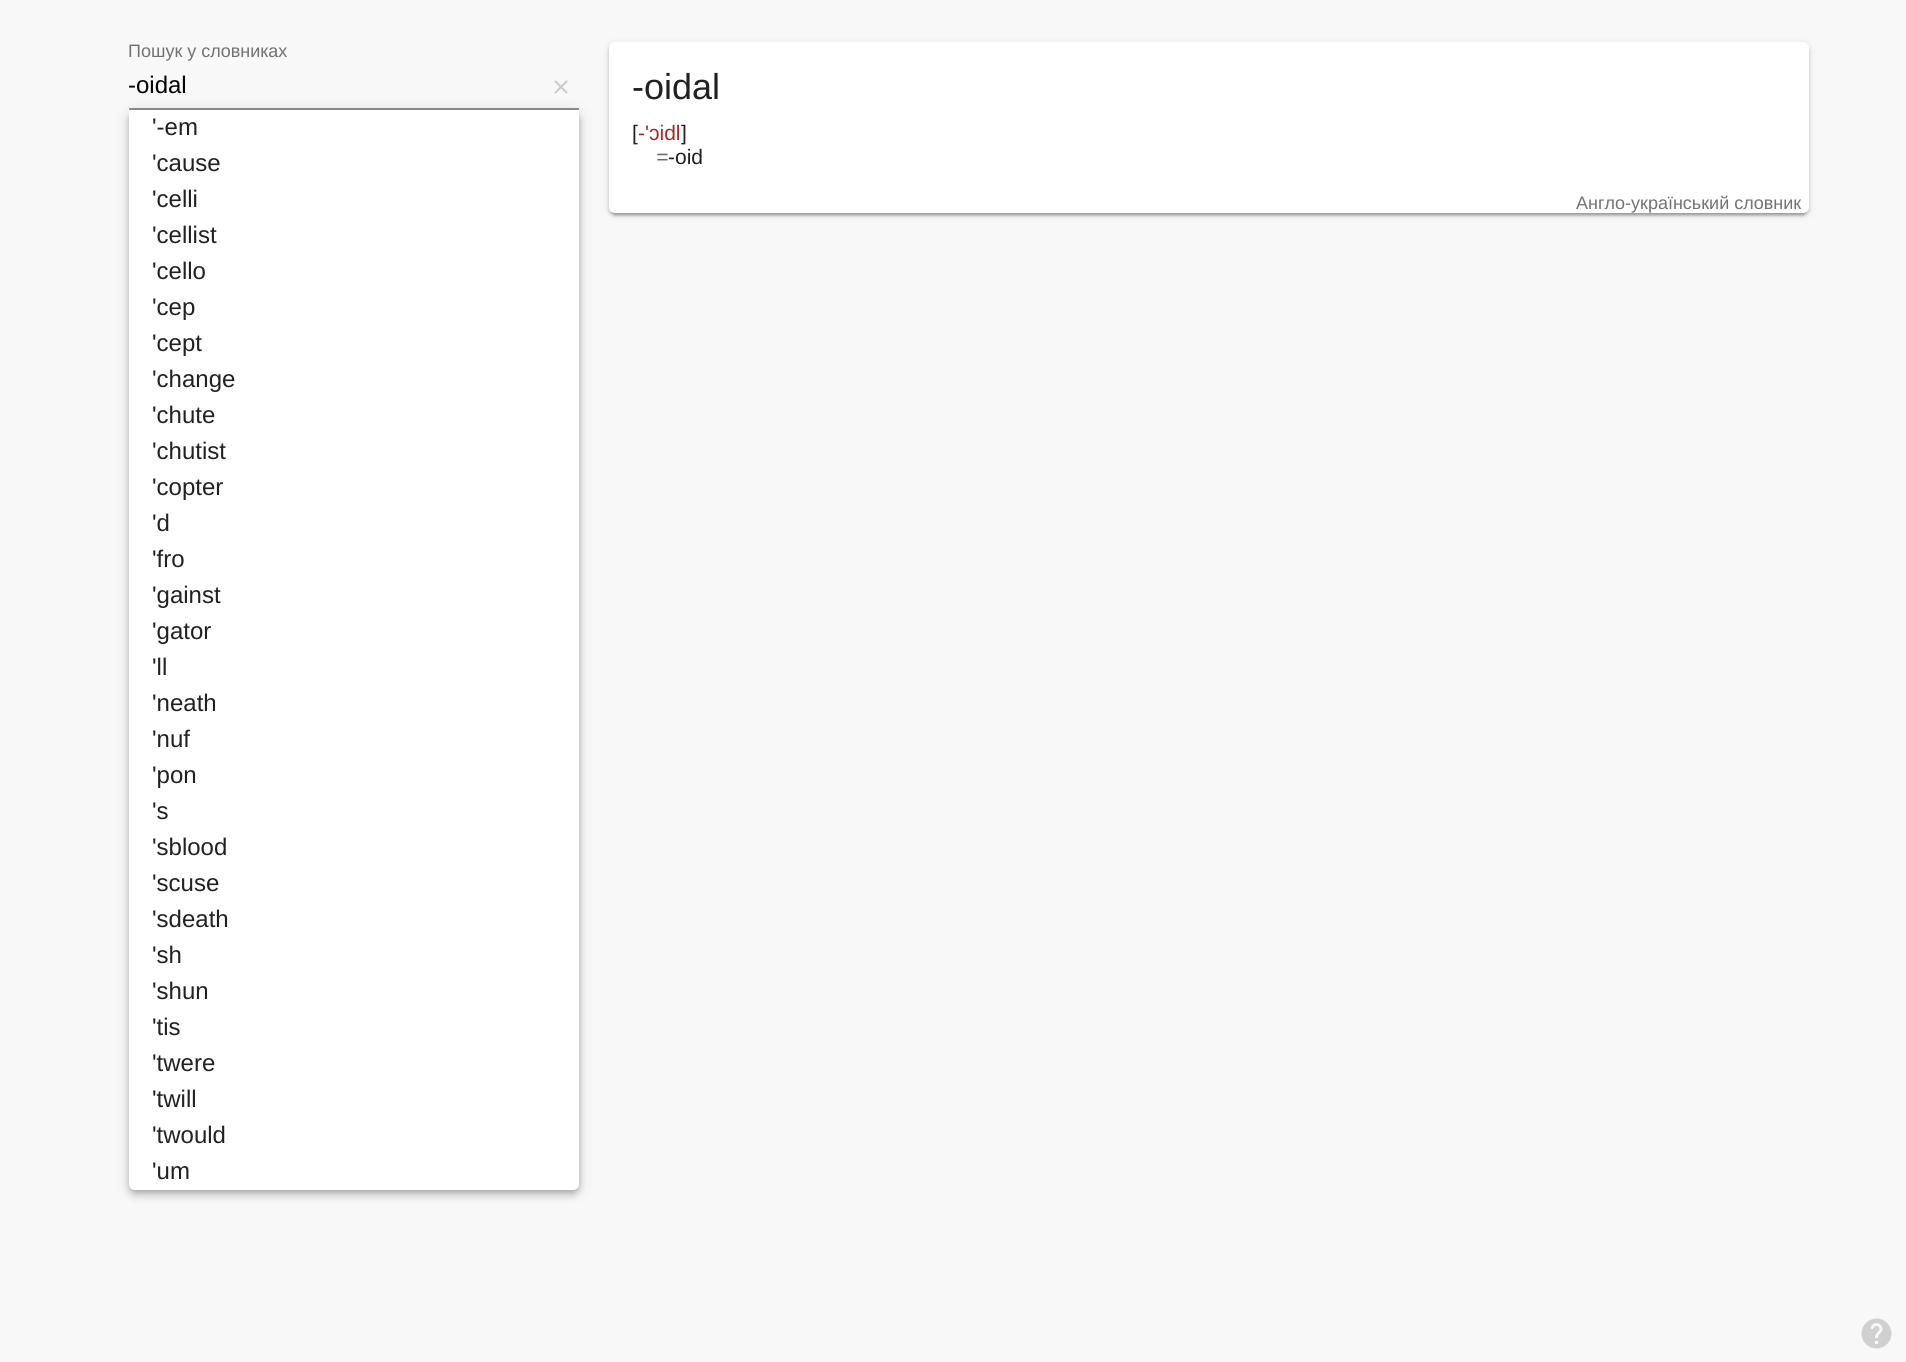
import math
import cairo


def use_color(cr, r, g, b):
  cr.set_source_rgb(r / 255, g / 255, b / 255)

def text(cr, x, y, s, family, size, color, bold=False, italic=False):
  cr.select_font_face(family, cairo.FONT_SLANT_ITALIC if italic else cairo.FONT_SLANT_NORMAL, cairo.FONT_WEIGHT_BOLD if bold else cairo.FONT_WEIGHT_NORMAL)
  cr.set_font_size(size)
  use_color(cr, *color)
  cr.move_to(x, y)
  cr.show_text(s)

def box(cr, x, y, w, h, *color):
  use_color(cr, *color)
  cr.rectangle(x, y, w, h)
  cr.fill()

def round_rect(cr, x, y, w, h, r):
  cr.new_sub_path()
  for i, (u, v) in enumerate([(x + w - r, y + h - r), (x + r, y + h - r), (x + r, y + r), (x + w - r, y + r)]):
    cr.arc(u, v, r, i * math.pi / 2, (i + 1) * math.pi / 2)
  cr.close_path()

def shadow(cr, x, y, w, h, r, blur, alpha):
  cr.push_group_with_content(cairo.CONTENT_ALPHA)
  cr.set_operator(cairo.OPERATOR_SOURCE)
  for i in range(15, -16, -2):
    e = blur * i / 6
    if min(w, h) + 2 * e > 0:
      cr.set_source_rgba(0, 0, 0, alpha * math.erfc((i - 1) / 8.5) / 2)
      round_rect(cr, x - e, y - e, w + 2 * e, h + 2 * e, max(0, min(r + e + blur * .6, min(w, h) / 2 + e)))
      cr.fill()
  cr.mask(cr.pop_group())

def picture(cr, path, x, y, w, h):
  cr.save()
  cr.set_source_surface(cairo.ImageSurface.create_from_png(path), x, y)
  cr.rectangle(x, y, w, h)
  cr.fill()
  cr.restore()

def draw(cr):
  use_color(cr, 248, 248, 248)
  cr.paint()
  picture(cr, "img_01.png", 554, 80, 14, 14)
  box(cr, 129, 108, 450, 2, 144, 144, 144)
  use_color(cr, 0, 0, 0)
  shadow(cr, 609, 44, 1200, 171, 6, 4, 0.12)
  shadow(cr, 609, 45, 1200, 171, 6, 1.5, 0.14)
  shadow(cr, 612, 50, 1194, 165, 3, 1, 0.2)
  use_color(cr, 255, 255, 255)
  round_rect(cr, 609, 42, 1200, 171, 6)
  cr.fill()
  picture(cr, "img_02.png", 1861, 1318, 31, 31)
  use_color(cr, 0, 0, 0)
  shadow(cr, 129, 111, 450, 1080, 6, 7.5, 0.12)
  shadow(cr, 129, 116, 450, 1080, 6, 4, 0.14)
  shadow(cr, 131, 114, 447, 1077, 5, 3, 0.2)
  use_color(cr, 255, 255, 255)
  cr.new_path()
  cr.move_to(129, 110)
  cr.line_to(579, 110)
  cr.line_to(579, 1184)
  cr.curve_to(579, 1187.5, 576.5, 1190, 573, 1190)
  cr.line_to(135, 1190)
  cr.curve_to(131.5, 1190, 129, 1187.5, 129, 1184)
  cr.close_path()
  cr.fill()
  text(cr, 128, 57, "Пошук у словниках", "Liberation Sans", 18, (114, 114, 114))
  text(cr, 128, 93, "-oidal", "Liberation Sans", 24, (0, 0, 0))
  text(cr, 632, 99, "-oidal", "Liberation Sans", 36, (33, 33, 33))
  text(cr, 632, 140, "[", "Liberation Sans", 21, (33, 33, 33))
  text(cr, 638, 140, "-'ɔidl", "Liberation Sans", 21, (165, 42, 42))
  text(cr, 681, 140, "]", "Liberation Sans", 21, (33, 33, 33))
  text(cr, 656, 164, "=", "Liberation Sans", 21, (105, 105, 105), italic=True)
  text(cr, 668, 164, "-oid", "Liberation Sans", 21, (33, 33, 33))
  text(cr, 1576, 209, "Англо-український словник", "Liberation Sans", 18, (114, 114, 114))
  text(cr, 152, 135, "'-em", "Liberation Sans", 24, (33, 33, 33))
  text(cr, 152, 171, "'cause", "Liberation Sans", 24, (33, 33, 33))
  text(cr, 152, 207, "'celli", "Liberation Sans", 24, (33, 33, 33))
  text(cr, 152, 243, "'cellist", "Liberation Sans", 24, (33, 33, 33))
  text(cr, 152, 279, "'cello", "Liberation Sans", 24, (33, 33, 33))
  text(cr, 152, 315, "'cep", "Liberation Sans", 24, (33, 33, 33))
  text(cr, 152, 351, "'cept", "Liberation Sans", 24, (33, 33, 33))
  text(cr, 152, 387, "'change", "Liberation Sans", 24, (33, 33, 33))
  text(cr, 152, 423, "'chute", "Liberation Sans", 24, (33, 33, 33))
  text(cr, 152, 459, "'chutist", "Liberation Sans", 24, (33, 33, 33))
  text(cr, 152, 495, "'copter", "Liberation Sans", 24, (33, 33, 33))
  text(cr, 152, 531, "'d", "Liberation Sans", 24, (33, 33, 33))
  text(cr, 152, 567, "'fro", "Liberation Sans", 24, (33, 33, 33))
  text(cr, 152, 603, "'gainst", "Liberation Sans", 24, (33, 33, 33))
  text(cr, 152, 639, "'gator", "Liberation Sans", 24, (33, 33, 33))
  text(cr, 152, 675, "'ll", "Liberation Sans", 24, (33, 33, 33))
  text(cr, 152, 711, "'neath", "Liberation Sans", 24, (33, 33, 33))
  text(cr, 152, 747, "'nuf", "Liberation Sans", 24, (33, 33, 33))
  text(cr, 152, 783, "'pon", "Liberation Sans", 24, (33, 33, 33))
  text(cr, 152, 819, "'s", "Liberation Sans", 24, (33, 33, 33))
  text(cr, 152, 855, "'sblood", "Liberation Sans", 24, (33, 33, 33))
  text(cr, 152, 891, "'scuse", "Liberation Sans", 24, (33, 33, 33))
  text(cr, 152, 927, "'sdeath", "Liberation Sans", 24, (33, 33, 33))
  text(cr, 152, 963, "'sh", "Liberation Sans", 24, (33, 33, 33))
  text(cr, 152, 999, "'shun", "Liberation Sans", 24, (33, 33, 33))
  text(cr, 152, 1035, "'tis", "Liberation Sans", 24, (33, 33, 33))
  text(cr, 152, 1071, "'twere", "Liberation Sans", 24, (33, 33, 33))
  text(cr, 152, 1107, "'twill", "Liberation Sans", 24, (33, 33, 33))
  text(cr, 152, 1143, "'twould", "Liberation Sans", 24, (33, 33, 33))
  text(cr, 152, 1179, "'um", "Liberation Sans", 24, (33, 33, 33))


surface = cairo.ImageSurface(cairo.FORMAT_RGB24, 1906, 1362)
cr = cairo.Context(surface)
options = cairo.FontOptions()
options.set_hint_metrics(cairo.HINT_METRICS_OFF)
options.set_hint_style(cairo.HINT_STYLE_NONE)
cr.set_font_options(options)
cr.set_miter_limit(4)
draw(cr)
surface.write_to_png("out.png")
